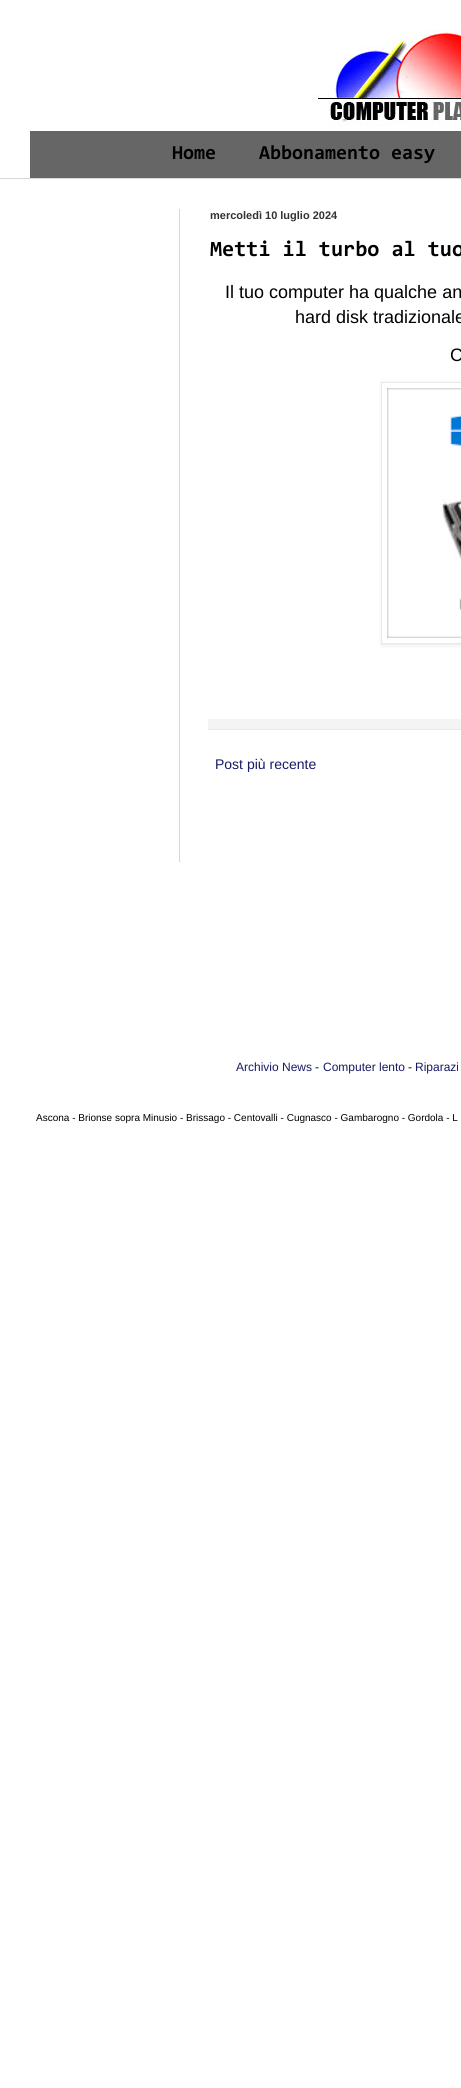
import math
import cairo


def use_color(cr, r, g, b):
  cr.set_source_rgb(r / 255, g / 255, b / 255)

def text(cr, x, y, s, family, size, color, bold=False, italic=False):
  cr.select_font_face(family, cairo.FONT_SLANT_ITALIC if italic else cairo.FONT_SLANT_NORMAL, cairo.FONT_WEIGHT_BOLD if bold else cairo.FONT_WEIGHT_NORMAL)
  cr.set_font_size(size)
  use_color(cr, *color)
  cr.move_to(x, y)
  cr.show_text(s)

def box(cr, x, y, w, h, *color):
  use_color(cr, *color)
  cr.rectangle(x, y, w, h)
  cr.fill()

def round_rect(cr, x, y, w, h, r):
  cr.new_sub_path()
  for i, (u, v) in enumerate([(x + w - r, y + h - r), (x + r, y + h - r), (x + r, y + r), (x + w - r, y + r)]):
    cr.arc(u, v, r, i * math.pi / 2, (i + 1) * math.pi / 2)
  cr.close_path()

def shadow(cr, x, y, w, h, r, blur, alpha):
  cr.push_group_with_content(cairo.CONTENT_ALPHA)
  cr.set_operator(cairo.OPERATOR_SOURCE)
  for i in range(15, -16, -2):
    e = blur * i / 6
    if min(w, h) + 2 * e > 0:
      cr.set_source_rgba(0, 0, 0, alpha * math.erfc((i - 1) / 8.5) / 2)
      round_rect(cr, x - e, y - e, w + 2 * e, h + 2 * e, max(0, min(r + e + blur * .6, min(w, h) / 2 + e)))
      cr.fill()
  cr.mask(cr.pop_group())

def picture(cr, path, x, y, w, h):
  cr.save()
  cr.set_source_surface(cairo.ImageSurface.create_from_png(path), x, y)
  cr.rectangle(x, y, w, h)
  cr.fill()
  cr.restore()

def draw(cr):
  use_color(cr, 255, 255, 255)
  cr.paint()
  picture(cr, "img_01.png", 313, 30, 148, 96)
  box(cr, 30, 131, 431, 47, 102, 102, 102)
  box(cr, 0, 178, 461, 1, 215, 215, 215)
  box(cr, 179, 209, 1, 653, 215, 215, 215)
  cr.save()
  cr.set_fill_rule(cairo.FILL_RULE_EVEN_ODD)
  cr.new_path()
  cr.move_to(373, 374)
  cr.line_to(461, 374)
  cr.line_to(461, 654)
  cr.line_to(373, 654)
  cr.close_path()
  cr.move_to(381, 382)
  cr.line_to(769, 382)
  cr.line_to(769, 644)
  cr.line_to(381, 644)
  cr.close_path()
  cr.clip()
  use_color(cr, 0, 0, 0)
  shadow(cr, 382, 383, 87, 262, 0, 2.5, 0.1)
  cr.restore()
  cr.rectangle(381.5, 382.5, 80, 261)
  use_color(cr, 233, 233, 233)
  cr.set_line_width(1)
  cr.stroke()
  picture(cr, "img_02.png", 387, 388, 74, 250)
  box(cr, 208, 719, 253, 10, 244, 244, 244)
  box(cr, 208, 729, 253, 1, 233, 233, 233)
  text(cr, 172, 159, "Home", "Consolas", 20, (0, 0, 0), bold=True)
  text(cr, 259, 159, "Abbonamento easy", "Consolas", 20, (0, 0, 0), bold=True)
  text(cr, 210, 219, "mercoledì 10 luglio 2024", "Liberation Sans", 11, (50, 50, 50), bold=True)
  text(cr, 210, 256, "Metti il turbo al tuo", "Consolas", 22, (0, 0, 0), bold=True)
  text(cr, 225, 298, "Il tuo computer ha qualche an", "Liberation Sans", 18, (0, 0, 0))
  text(cr, 295, 323, "hard disk tradizionale", "Liberation Sans", 18, (0, 0, 0))
  text(cr, 450, 361, "C", "Liberation Sans", 18, (0, 0, 0))
  text(cr, 215, 769, "Post più recente", "Liberation Sans", 14, (22, 26, 100))
  text(cr, 236, 1071, "Archivio News", "Liberation Sans", 12, (22, 26, 100))
  text(cr, 315, 1071, "-", "Liberation Sans", 12, (0, 0, 0))
  text(cr, 323, 1071, "Computer lento", "Liberation Sans", 12, (22, 26, 100))
  text(cr, 408, 1071, "-", "Liberation Sans", 12, (0, 0, 0))
  text(cr, 415, 1071, "Riparazi", "Liberation Sans", 12, (22, 26, 100))
  text(cr, 36, 1121, "Ascona - Brionse sopra Minusio - Brissago - Centovalli - Cugnasco - Gambarogno - Gordola - L", "Liberation Sans", 10, (0, 0, 0))


surface = cairo.ImageSurface(cairo.FORMAT_RGB24, 461, 2088)
cr = cairo.Context(surface)
options = cairo.FontOptions()
options.set_hint_metrics(cairo.HINT_METRICS_OFF)
options.set_hint_style(cairo.HINT_STYLE_NONE)
cr.set_font_options(options)
cr.set_miter_limit(4)
draw(cr)
surface.write_to_png("out.png")
